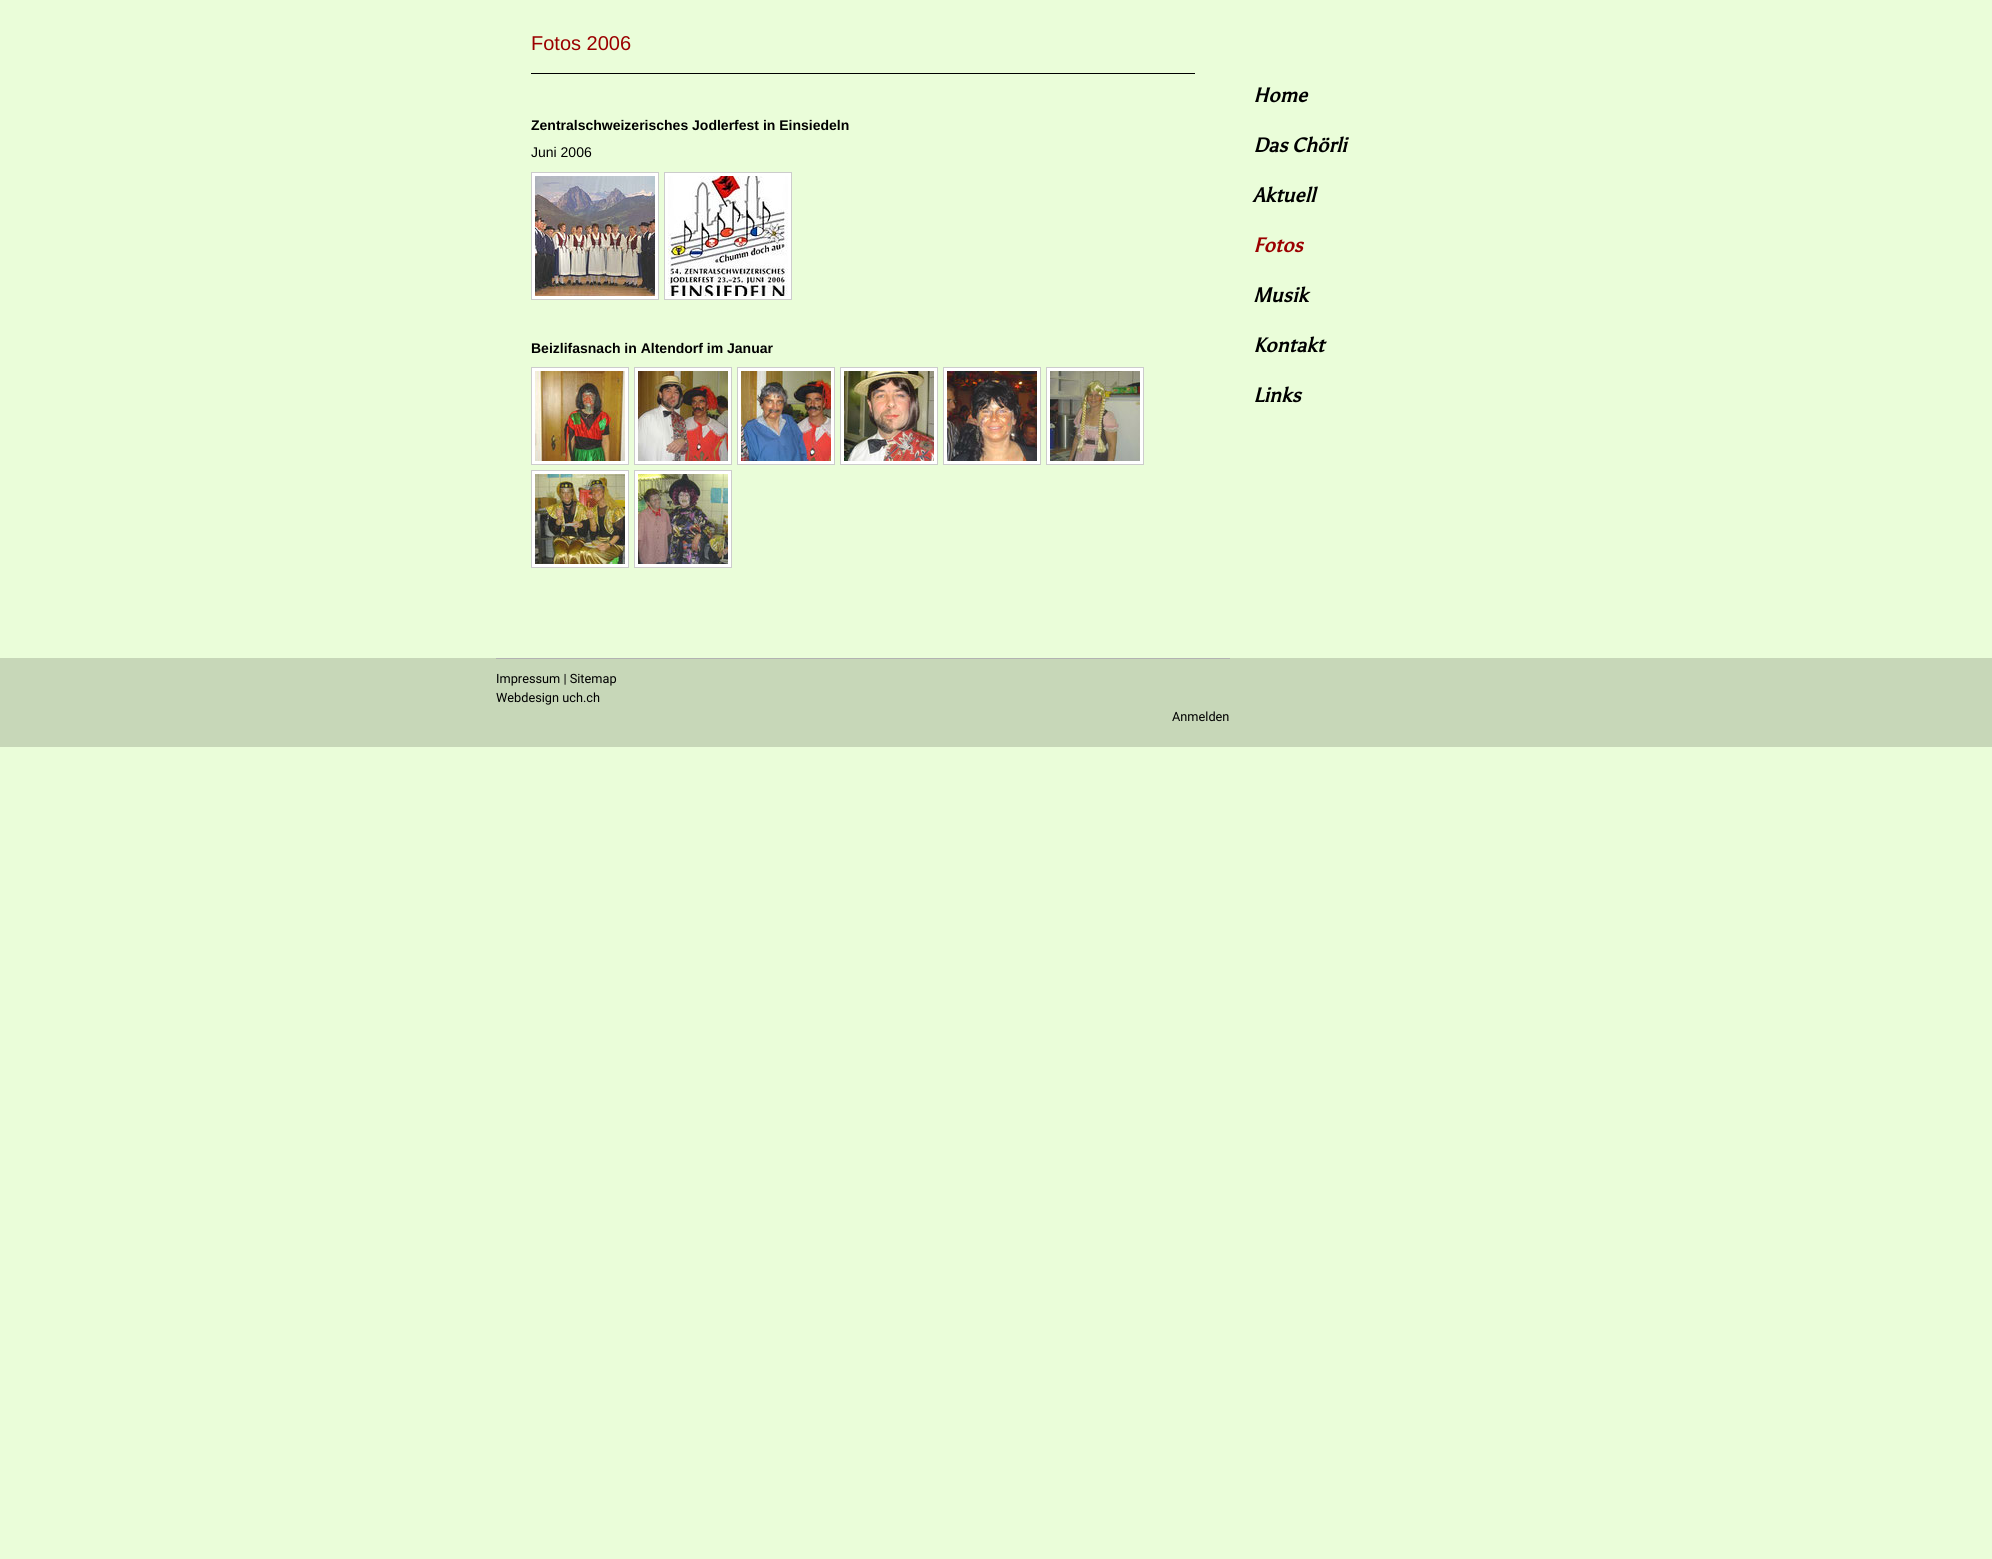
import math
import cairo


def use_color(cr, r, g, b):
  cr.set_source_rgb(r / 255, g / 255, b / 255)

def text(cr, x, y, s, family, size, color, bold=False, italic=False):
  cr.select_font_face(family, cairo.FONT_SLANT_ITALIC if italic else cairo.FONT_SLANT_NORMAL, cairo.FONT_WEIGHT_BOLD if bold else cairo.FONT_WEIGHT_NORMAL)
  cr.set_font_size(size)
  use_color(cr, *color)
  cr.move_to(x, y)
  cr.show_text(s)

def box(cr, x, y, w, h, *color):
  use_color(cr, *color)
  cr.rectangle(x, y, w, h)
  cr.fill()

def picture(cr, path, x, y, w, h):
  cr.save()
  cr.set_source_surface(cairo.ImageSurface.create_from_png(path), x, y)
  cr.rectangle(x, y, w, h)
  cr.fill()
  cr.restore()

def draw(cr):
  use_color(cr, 234, 253, 217)
  cr.paint()
  box(cr, 531, 73, 664, 1, 0, 0, 0)
  use_color(cr, 255, 255, 255)
  cr.rectangle(531.5, 172.5, 127, 127)
  cr.fill_preserve()
  use_color(cr, 204, 204, 204)
  cr.set_line_width(1)
  cr.stroke()
  picture(cr, "img_01.png", 535, 176, 120, 120)
  use_color(cr, 255, 255, 255)
  cr.rectangle(664.5, 172.5, 127, 127)
  cr.fill_preserve()
  use_color(cr, 204, 204, 204)
  cr.stroke()
  picture(cr, "img_02.png", 668, 176, 120, 120)
  use_color(cr, 255, 255, 255)
  cr.rectangle(531.5, 367.5, 97, 97)
  cr.fill_preserve()
  use_color(cr, 204, 204, 204)
  cr.stroke()
  picture(cr, "img_03.png", 535, 371, 90, 90)
  use_color(cr, 255, 255, 255)
  cr.rectangle(634.5, 367.5, 97, 97)
  cr.fill_preserve()
  use_color(cr, 204, 204, 204)
  cr.stroke()
  picture(cr, "img_04.png", 638, 371, 90, 90)
  use_color(cr, 255, 255, 255)
  cr.rectangle(737.5, 367.5, 97, 97)
  cr.fill_preserve()
  use_color(cr, 204, 204, 204)
  cr.stroke()
  picture(cr, "img_05.png", 741, 371, 90, 90)
  use_color(cr, 255, 255, 255)
  cr.rectangle(840.5, 367.5, 97, 97)
  cr.fill_preserve()
  use_color(cr, 204, 204, 204)
  cr.stroke()
  picture(cr, "img_06.png", 844, 371, 90, 90)
  use_color(cr, 255, 255, 255)
  cr.rectangle(943.5, 367.5, 97, 97)
  cr.fill_preserve()
  use_color(cr, 204, 204, 204)
  cr.stroke()
  picture(cr, "img_07.png", 947, 371, 90, 90)
  use_color(cr, 255, 255, 255)
  cr.rectangle(1046.5, 367.5, 97, 97)
  cr.fill_preserve()
  use_color(cr, 204, 204, 204)
  cr.stroke()
  picture(cr, "img_08.png", 1050, 371, 90, 90)
  use_color(cr, 255, 255, 255)
  cr.rectangle(531.5, 470.5, 97, 97)
  cr.fill_preserve()
  use_color(cr, 204, 204, 204)
  cr.stroke()
  picture(cr, "img_09.png", 535, 474, 90, 90)
  use_color(cr, 255, 255, 255)
  cr.rectangle(634.5, 470.5, 97, 97)
  cr.fill_preserve()
  use_color(cr, 204, 204, 204)
  cr.stroke()
  picture(cr, "img_10.png", 638, 474, 90, 90)
  box(cr, 0, 658, 1992, 89, 199, 215, 184)
  box(cr, 496, 658, 734, 1, 178, 178, 178)
  text(cr, 531, 50, "Fotos 2006", "Liberation Sans", 20, (155, 0, 0))
  text(cr, 531, 130, "Zentralschweizerisches Jodlerfest in Einsiedeln", "Liberation Sans", 14, (0, 0, 0), bold=True)
  text(cr, 531, 157, "Juni 2006", "Liberation Sans", 14, (0, 0, 0))
  text(cr, 531, 353, "Beizlifasnach in Altendorf im Januar", "Liberation Sans", 14, (0, 0, 0), bold=True)
  text(cr, 1253, 102, "Home", "Asul", 20, (0, 0, 0), bold=True, italic=True)
  text(cr, 1253, 152, "Das Chörli", "Asul", 20, (0, 0, 0), bold=True, italic=True)
  text(cr, 1253, 202, "Aktuell", "Asul", 20, (0, 0, 0), bold=True, italic=True)
  text(cr, 1253, 252, "Fotos", "Asul", 20, (155, 0, 0), bold=True, italic=True)
  text(cr, 1253, 302, "Musik", "Asul", 20, (0, 0, 0), bold=True, italic=True)
  text(cr, 1253, 352, "Kontakt", "Asul", 20, (0, 0, 0), bold=True, italic=True)
  text(cr, 1253, 402, "Links", "Asul", 20, (0, 0, 0), bold=True, italic=True)
  text(cr, 496, 683, "Impressum | Sitemap", "Roboto", 12.75, (0, 0, 0))
  text(cr, 496, 702, "Webdesign uch.ch", "Roboto", 12.75, (0, 0, 0))
  text(cr, 1172, 721, "Anmelden", "Roboto", 12.75, (0, 0, 0))


surface = cairo.ImageSurface(cairo.FORMAT_RGB24, 1992, 1559)
cr = cairo.Context(surface)
options = cairo.FontOptions()
options.set_hint_metrics(cairo.HINT_METRICS_OFF)
options.set_hint_style(cairo.HINT_STYLE_NONE)
cr.set_font_options(options)
cr.set_miter_limit(4)
draw(cr)
surface.write_to_png("out.png")
